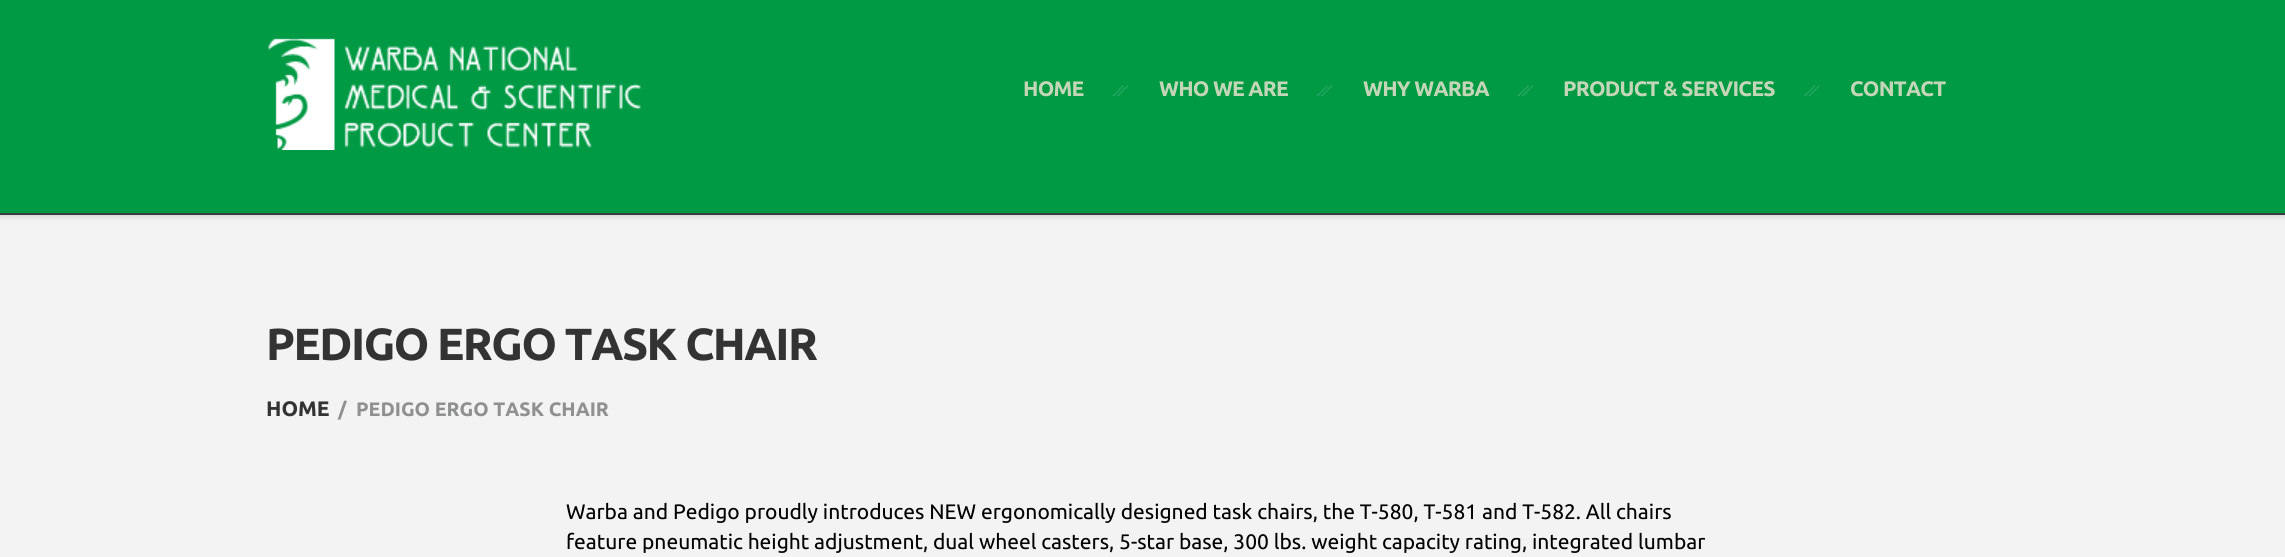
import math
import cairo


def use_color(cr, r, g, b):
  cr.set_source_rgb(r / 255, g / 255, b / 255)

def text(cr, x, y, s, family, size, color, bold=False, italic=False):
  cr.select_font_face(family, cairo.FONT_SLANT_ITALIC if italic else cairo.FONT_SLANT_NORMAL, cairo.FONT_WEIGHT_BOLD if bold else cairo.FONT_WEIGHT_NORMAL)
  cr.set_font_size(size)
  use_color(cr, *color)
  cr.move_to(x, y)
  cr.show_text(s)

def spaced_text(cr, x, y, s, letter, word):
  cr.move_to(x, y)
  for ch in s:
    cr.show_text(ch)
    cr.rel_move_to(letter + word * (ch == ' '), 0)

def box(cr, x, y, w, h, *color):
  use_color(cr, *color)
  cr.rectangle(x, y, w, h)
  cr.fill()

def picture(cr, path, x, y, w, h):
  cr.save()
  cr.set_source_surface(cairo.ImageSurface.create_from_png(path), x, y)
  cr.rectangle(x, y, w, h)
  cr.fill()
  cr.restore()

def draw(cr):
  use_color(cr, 243, 243, 243)
  cr.paint()
  box(cr, 0, 0, 2285, 213, 0, 153, 68)
  box(cr, 0, 213, 2285, 2, 62, 62, 62)
  picture(cr, "img_01.png", 268, 38, 373, 112)
  picture(cr, "img_02.png", 1113, 85, 15, 11)
  picture(cr, "img_03.png", 1317, 85, 15, 11)
  picture(cr, "img_04.png", 1518, 85, 15, 11)
  picture(cr, "img_05.png", 1804, 85, 16, 11)
  picture(cr, "img_06.png", 0, 215, 2285, 5)
  cr.select_font_face("Ubuntu", cairo.FONT_SLANT_NORMAL, cairo.FONT_WEIGHT_BOLD)
  cr.set_font_size(21)
  use_color(cr, 195, 214, 182)
  spaced_text(cr, 1023, 96, "HOME", -0.75, 0)
  spaced_text(cr, 1159, 96, "WHO WE ARE", -0.75, 0)
  spaced_text(cr, 1363, 96, "WHY WARBA", -0.75, 0)
  spaced_text(cr, 1563, 96, "PRODUCT & SERVICES", -0.75, 0)
  spaced_text(cr, 1850, 96, "CONTACT", -0.75, 0)
  cr.set_font_size(45)
  use_color(cr, 51, 51, 51)
  spaced_text(cr, 266, 360, "PEDIGO ERGO TASK CHAIR", -1.5, 0)
  text(cr, 266, 416, "HOME", "Ubuntu", 21, (51, 51, 51), bold=True)
  text(cr, 338, 416, "/", "Ubuntu", 19.5, (143, 144, 144), bold=True)
  text(cr, 356, 416, "PEDIGO ERGO TASK CHAIR", "Ubuntu", 19.5, (143, 144, 144), bold=True)
  text(cr, 566, 519, "Warba and Pedigo proudly introduces NEW ergonomically designed task chairs, the T-580, T-581 and T-582. All chairs", "Ubuntu", 21, (0, 0, 0))
  text(cr, 566, 549, "feature pneumatic height adjustment, dual wheel casters, 5-star base, 300 lbs. weight capacity rating, integrated lumbar", "Ubuntu", 21, (0, 0, 0))


surface = cairo.ImageSurface(cairo.FORMAT_RGB24, 2285, 557)
cr = cairo.Context(surface)
options = cairo.FontOptions()
options.set_hint_metrics(cairo.HINT_METRICS_OFF)
options.set_hint_style(cairo.HINT_STYLE_NONE)
cr.set_font_options(options)
cr.set_miter_limit(4)
draw(cr)
surface.write_to_png("out.png")
